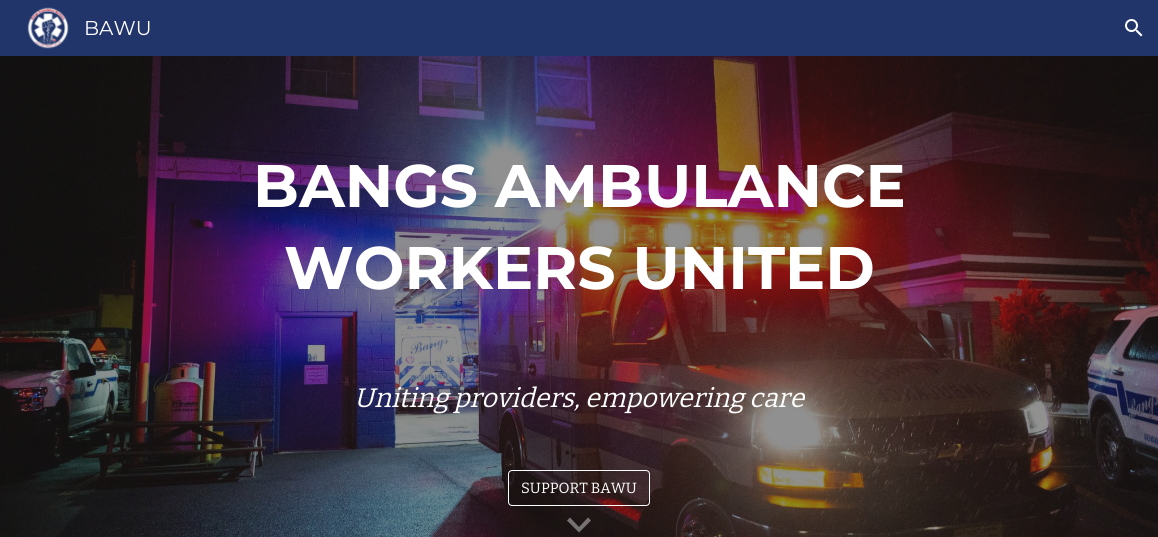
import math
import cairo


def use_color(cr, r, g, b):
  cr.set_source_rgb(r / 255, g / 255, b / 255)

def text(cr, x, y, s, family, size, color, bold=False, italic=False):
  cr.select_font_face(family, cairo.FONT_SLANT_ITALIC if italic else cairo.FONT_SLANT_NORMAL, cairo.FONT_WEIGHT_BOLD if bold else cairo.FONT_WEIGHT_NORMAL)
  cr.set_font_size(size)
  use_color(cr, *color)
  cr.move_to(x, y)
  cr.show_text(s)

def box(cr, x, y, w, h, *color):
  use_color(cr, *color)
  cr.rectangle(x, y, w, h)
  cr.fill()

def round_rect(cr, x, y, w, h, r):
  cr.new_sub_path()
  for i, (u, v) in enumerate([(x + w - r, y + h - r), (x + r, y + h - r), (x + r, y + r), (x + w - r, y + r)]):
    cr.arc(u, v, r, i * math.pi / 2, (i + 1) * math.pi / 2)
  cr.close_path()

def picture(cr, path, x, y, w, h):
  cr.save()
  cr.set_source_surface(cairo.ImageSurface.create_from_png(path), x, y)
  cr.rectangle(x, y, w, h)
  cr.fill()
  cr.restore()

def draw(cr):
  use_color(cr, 255, 255, 255)
  cr.paint()
  box(cr, 0, 0, 1158, 56, 34, 53, 107)
  picture(cr, "img_01.png", 27, 7, 42, 42)
  picture(cr, "img_02.png", 1125, 19, 18, 18)
  picture(cr, "img_03.png", 0, 56, 1158, 481)
  round_rect(cr, 508.5, 470.5, 141, 35, 3.5)
  use_color(cr, 255, 255, 255)
  cr.set_line_width(1)
  cr.stroke()
  cr.set_source_rgba(1, 1, 1, 0.4)
  cr.new_path()
  cr.move_to(570, 517.5)
  cr.line_to(579, 527)
  cr.line_to(588, 517.5)
  cr.line_to(591, 520.5)
  cr.line_to(579, 532.5)
  cr.line_to(567, 520.5)
  cr.close_path()
  cr.fill()
  text(cr, 84, 35, "BAWU", "Montserrat", 20, (255, 255, 255))
  text(cr, 253, 207, "BANGS AMBULANCE", "Montserrat", 60, (255, 255, 255), bold=True)
  text(cr, 284, 289, "WORKERS UNITED", "Montserrat", 60, (255, 255, 255), bold=True)
  text(cr, 354, 407, "Uniting providers, empowering care", "Bitter", 26.7, (255, 255, 255), italic=True)
  text(cr, 521, 493, "SUPPORT BAWU", "Bitter", 14.75, (255, 255, 255))


surface = cairo.ImageSurface(cairo.FORMAT_RGB24, 1158, 537)
cr = cairo.Context(surface)
options = cairo.FontOptions()
options.set_hint_metrics(cairo.HINT_METRICS_OFF)
options.set_hint_style(cairo.HINT_STYLE_NONE)
cr.set_font_options(options)
cr.set_miter_limit(4)
draw(cr)
surface.write_to_png("out.png")
